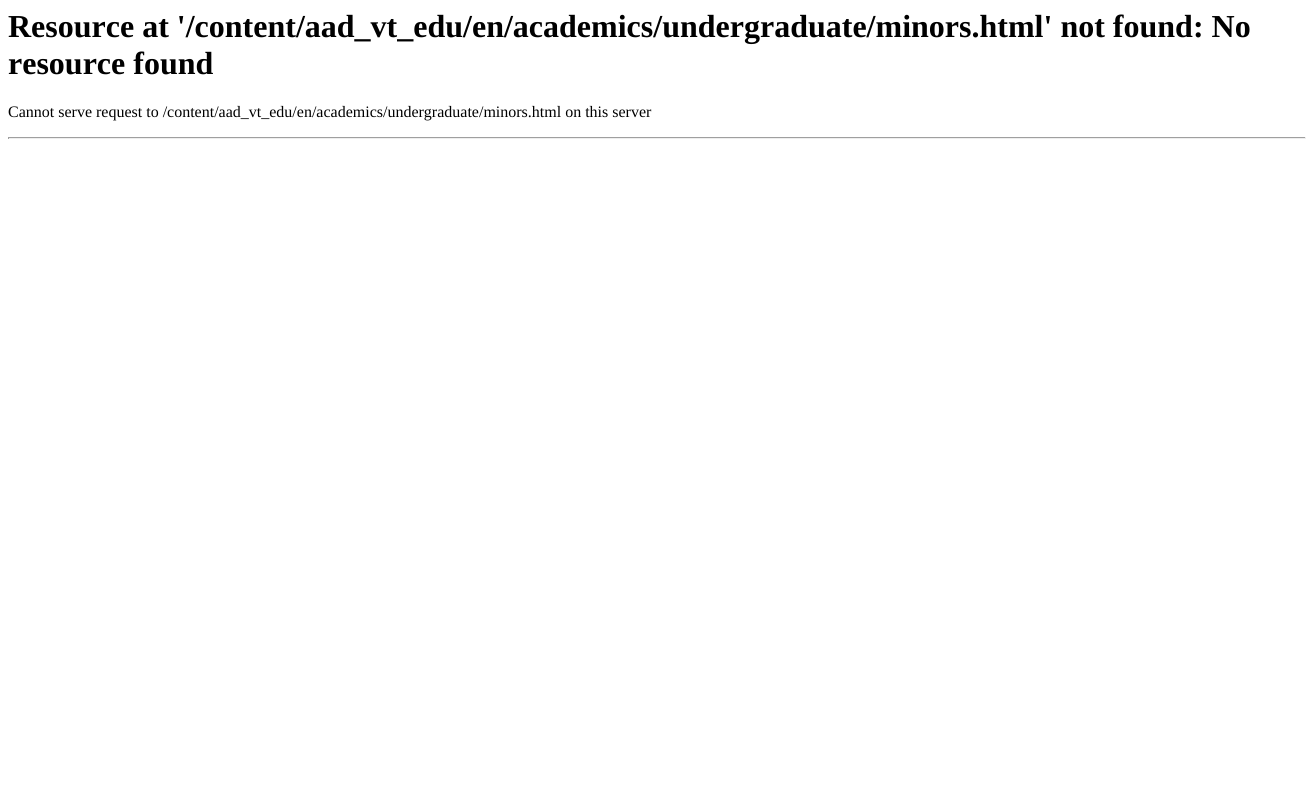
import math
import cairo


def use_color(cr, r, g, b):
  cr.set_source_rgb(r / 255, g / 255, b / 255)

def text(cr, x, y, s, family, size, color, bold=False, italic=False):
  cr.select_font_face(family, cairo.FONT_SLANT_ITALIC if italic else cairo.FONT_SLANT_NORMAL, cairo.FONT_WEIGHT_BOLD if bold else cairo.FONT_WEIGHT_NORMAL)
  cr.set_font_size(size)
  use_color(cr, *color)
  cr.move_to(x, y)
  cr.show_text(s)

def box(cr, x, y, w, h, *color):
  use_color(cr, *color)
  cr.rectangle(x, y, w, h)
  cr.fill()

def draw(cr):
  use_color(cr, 255, 255, 255)
  cr.paint()
  box(cr, 8, 137, 1298, 1, 159, 159, 159)
  box(cr, 1305, 137, 1, 2, 238, 238, 238)
  box(cr, 8, 138, 1298, 1, 238, 238, 238)
  box(cr, 8, 137, 1, 2, 159, 159, 159)
  text(cr, 8, 37, "Resource at '/content/aad_vt_edu/en/academics/undergraduate/minors.html' not found: No", "Liberation Serif", 32, (0, 0, 0), bold=True)
  text(cr, 8, 74, "resource found", "Liberation Serif", 32, (0, 0, 0), bold=True)
  text(cr, 8, 117, "Cannot serve request to /content/aad_vt_edu/en/academics/undergraduate/minors.html on this server", "Liberation Serif", 16, (0, 0, 0))


surface = cairo.ImageSurface(cairo.FORMAT_RGB24, 1314, 791)
cr = cairo.Context(surface)
options = cairo.FontOptions()
options.set_hint_metrics(cairo.HINT_METRICS_OFF)
options.set_hint_style(cairo.HINT_STYLE_NONE)
cr.set_font_options(options)
cr.set_miter_limit(4)
draw(cr)
surface.write_to_png("out.png")
